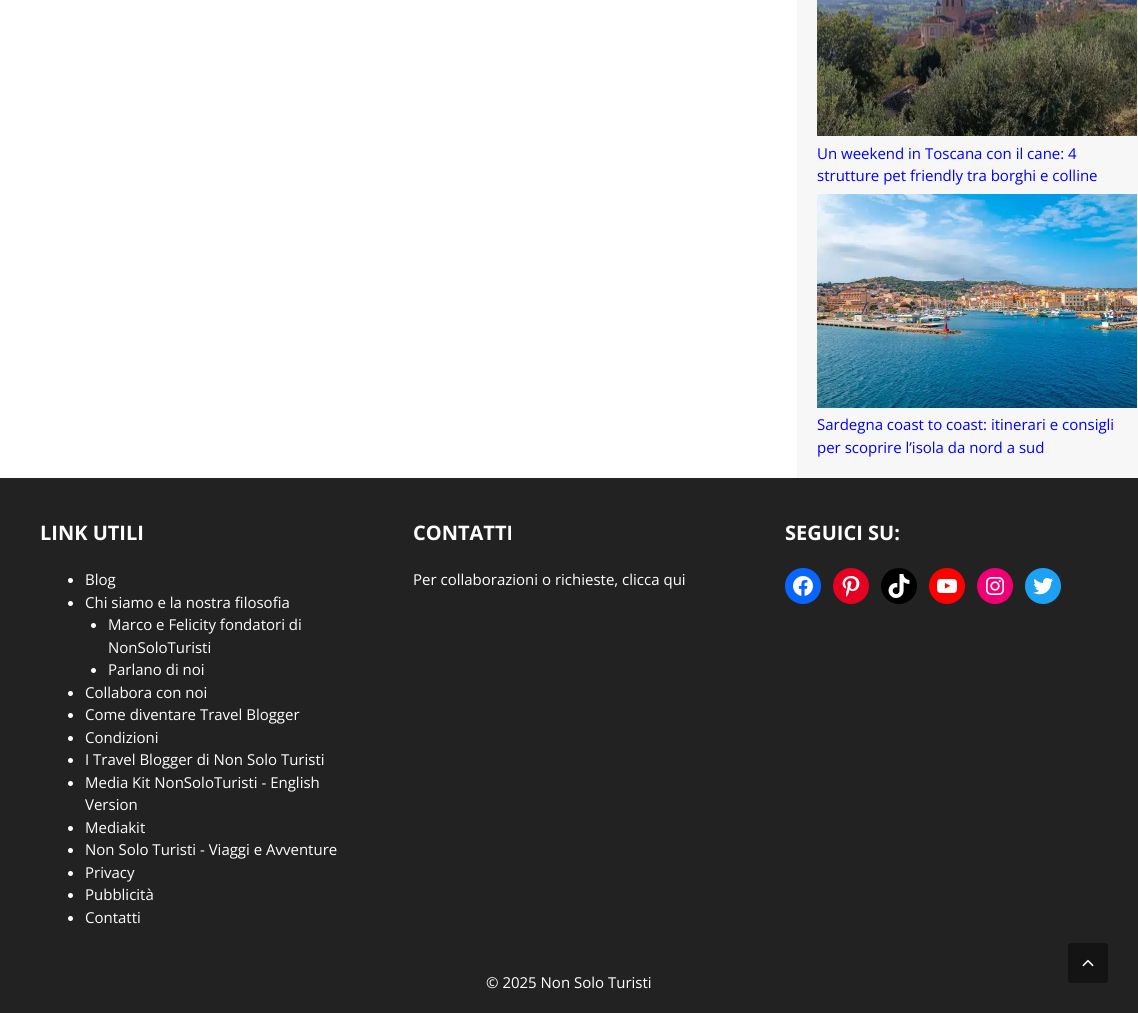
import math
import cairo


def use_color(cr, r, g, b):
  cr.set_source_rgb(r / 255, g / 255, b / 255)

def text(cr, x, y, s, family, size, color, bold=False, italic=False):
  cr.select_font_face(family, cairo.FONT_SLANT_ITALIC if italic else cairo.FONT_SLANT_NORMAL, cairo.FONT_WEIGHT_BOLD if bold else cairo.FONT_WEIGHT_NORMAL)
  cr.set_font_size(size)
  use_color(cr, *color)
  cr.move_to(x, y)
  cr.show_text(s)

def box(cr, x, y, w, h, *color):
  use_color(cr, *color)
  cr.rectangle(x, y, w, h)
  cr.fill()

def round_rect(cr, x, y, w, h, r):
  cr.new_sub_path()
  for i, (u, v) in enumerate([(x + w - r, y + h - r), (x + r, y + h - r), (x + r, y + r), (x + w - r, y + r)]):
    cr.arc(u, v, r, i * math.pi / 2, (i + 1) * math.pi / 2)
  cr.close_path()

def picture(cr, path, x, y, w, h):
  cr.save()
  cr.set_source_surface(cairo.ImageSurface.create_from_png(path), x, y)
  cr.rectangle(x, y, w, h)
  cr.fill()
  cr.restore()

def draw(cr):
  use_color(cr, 255, 255, 255)
  cr.paint()
  box(cr, 797, 0, 341, 478, 247, 247, 247)
  picture(cr, "img_01.png", 817, 0, 320, 136)
  picture(cr, "img_02.png", 817, 194, 320, 214)
  box(cr, 0, 478, 1138, 535, 34, 34, 34)
  use_color(cr, 255, 255, 255)
  cr.arc(70.5, 580.5, 2.5, 0, 2 * math.pi)
  cr.fill()
  cr.arc(70.5, 603.5, 2.5, 0, 2 * math.pi)
  cr.fill()
  cr.arc(93.5, 625.5, 2.5, 0, 2 * math.pi)
  cr.fill()
  cr.arc(93.5, 670.5, 2.5, 0, 2 * math.pi)
  cr.fill()
  cr.arc(70.5, 693.5, 2.5, 0, 2 * math.pi)
  cr.fill()
  cr.arc(70.5, 715.5, 2.5, 0, 2 * math.pi)
  cr.fill()
  cr.arc(70.5, 738.5, 2.5, 0, 2 * math.pi)
  cr.fill()
  cr.arc(70.5, 760.5, 2.5, 0, 2 * math.pi)
  cr.fill()
  cr.arc(70.5, 783.5, 2.5, 0, 2 * math.pi)
  cr.fill()
  cr.arc(70.5, 828.5, 2.5, 0, 2 * math.pi)
  cr.fill()
  cr.arc(70.5, 850.5, 2.5, 0, 2 * math.pi)
  cr.fill()
  cr.arc(70.5, 873.5, 2.5, 0, 2 * math.pi)
  cr.fill()
  cr.arc(70.5, 895.5, 2.5, 0, 2 * math.pi)
  cr.fill()
  cr.arc(70.5, 918.5, 2.5, 0, 2 * math.pi)
  cr.fill()
  use_color(cr, 8, 102, 255)
  cr.arc(803, 586, 18, 0, 2 * math.pi)
  cr.fill()
  picture(cr, "img_03.png", 793, 576, 20, 20)
  use_color(cr, 230, 1, 34)
  cr.arc(851, 586, 18, 0, 2 * math.pi)
  cr.fill()
  picture(cr, "img_04.png", 842, 576, 18, 21)
  use_color(cr, 0, 0, 0)
  cr.arc(899, 586, 18, 0, 2 * math.pi)
  cr.fill()
  picture(cr, "img_05.png", 888, 574, 22, 24)
  use_color(cr, 255, 0, 0)
  cr.arc(947, 586, 18, 0, 2 * math.pi)
  cr.fill()
  picture(cr, "img_06.png", 937, 579, 20, 14)
  use_color(cr, 240, 0, 117)
  cr.arc(995, 586, 18, 0, 2 * math.pi)
  cr.fill()
  picture(cr, "img_07.png", 986, 577, 18, 18)
  use_color(cr, 29, 161, 242)
  cr.arc(1043, 586, 18, 0, 2 * math.pi)
  cr.fill()
  picture(cr, "img_08.png", 1033, 578, 20, 17)
  use_color(cr, 20, 20, 20)
  round_rect(cr, 1068, 943, 40, 40, 3)
  cr.fill()
  picture(cr, "img_09.png", 1082, 959, 12, 8)
  text(cr, 817, 159, "Un weekend in Toscana con il cane: 4", "Open Sans", 15, (0, 0, 255))
  text(cr, 817, 181, "strutture pet friendly tra borghi e colline", "Open Sans", 15, (0, 0, 255))
  text(cr, 817, 430, "Sardegna coast to coast: itinerari e consigli", "Open Sans", 15, (0, 0, 255))
  text(cr, 817, 453, "per scoprire l’isola da nord a sud", "Open Sans", 15, (0, 0, 255))
  text(cr, 40, 540, "LINK UTILI", "Open Sans", 20, (255, 255, 255), bold=True)
  text(cr, 85, 585, "Blog", "Open Sans", 15, (255, 255, 255))
  text(cr, 85, 608, "Chi siamo e la nostra filosofia", "Open Sans", 15, (255, 255, 255))
  text(cr, 108, 630, "Marco e Felicity fondatori di", "Open Sans", 15, (255, 255, 255))
  text(cr, 108, 653, "NonSoloTuristi", "Open Sans", 15, (255, 255, 255))
  text(cr, 108, 675, "Parlano di noi", "Open Sans", 15, (255, 255, 255))
  text(cr, 85, 698, "Collabora con noi", "Open Sans", 15, (255, 255, 255))
  text(cr, 85, 720, "Come diventare Travel Blogger", "Open Sans", 15, (255, 255, 255))
  text(cr, 85, 743, "Condizioni", "Open Sans", 15, (255, 255, 255))
  text(cr, 85, 765, "I Travel Blogger di Non Solo Turisti", "Open Sans", 15, (255, 255, 255))
  text(cr, 85, 788, "Media Kit NonSoloTuristi - English", "Open Sans", 15, (255, 255, 255))
  text(cr, 85, 810, "Version", "Open Sans", 15, (255, 255, 255))
  text(cr, 85, 833, "Mediakit", "Open Sans", 15, (255, 255, 255))
  text(cr, 85, 855, "Non Solo Turisti - Viaggi e Avventure", "Open Sans", 15, (255, 255, 255))
  text(cr, 85, 878, "Privacy", "Open Sans", 15, (255, 255, 255))
  text(cr, 85, 900, "Pubblicità", "Open Sans", 15, (255, 255, 255))
  text(cr, 85, 923, "Contatti", "Open Sans", 15, (255, 255, 255))
  text(cr, 413, 540, "CONTATTI", "Open Sans", 20, (255, 255, 255), bold=True)
  text(cr, 413, 585, "Per collaborazioni o richieste, clicca qui", "Open Sans", 15, (255, 255, 255))
  text(cr, 785, 540, "SEGUICI SU:", "Open Sans", 20, (255, 255, 255), bold=True)
  text(cr, 486, 988, "© 2025 Non Solo Turisti", "Open Sans", 15, (255, 255, 255))


surface = cairo.ImageSurface(cairo.FORMAT_RGB24, 1138, 1013)
cr = cairo.Context(surface)
options = cairo.FontOptions()
options.set_hint_metrics(cairo.HINT_METRICS_OFF)
options.set_hint_style(cairo.HINT_STYLE_NONE)
cr.set_font_options(options)
cr.set_miter_limit(4)
draw(cr)
surface.write_to_png("out.png")
